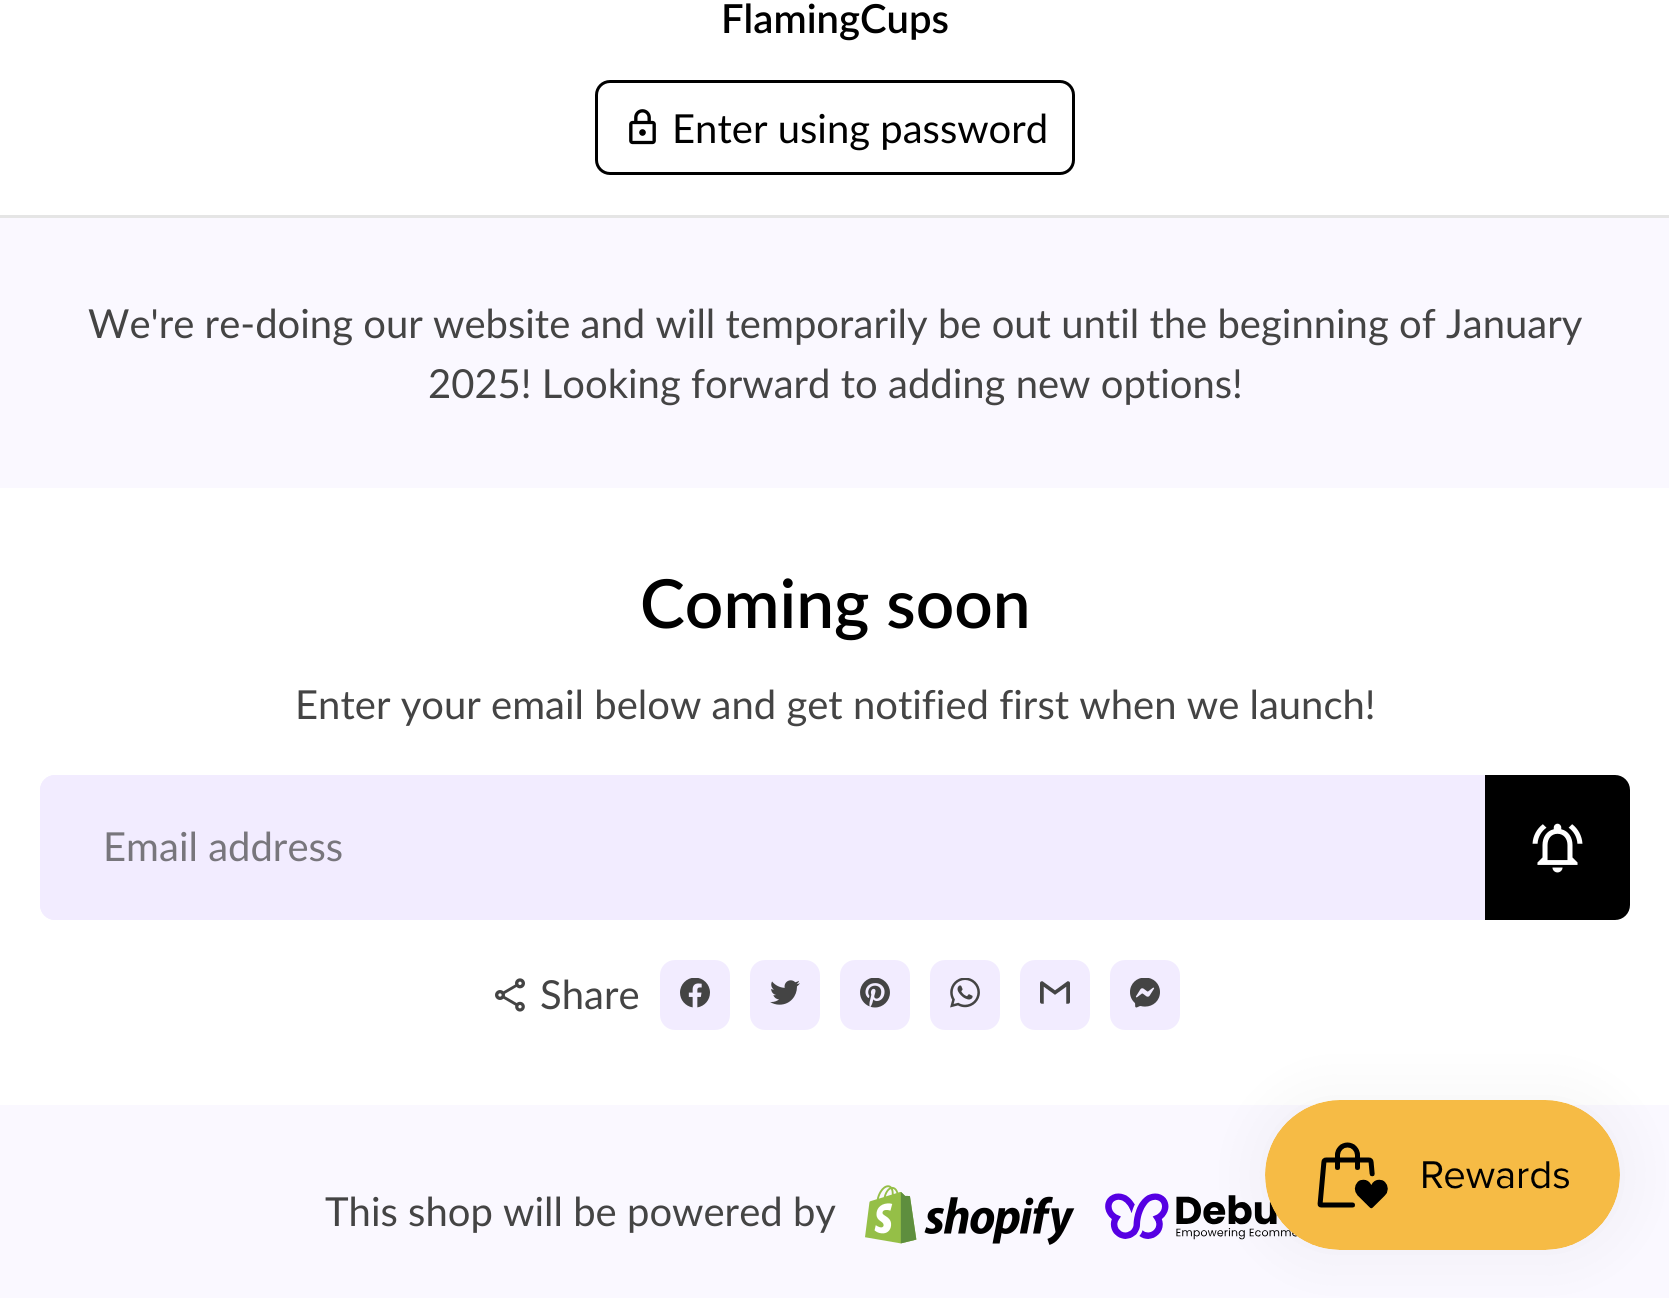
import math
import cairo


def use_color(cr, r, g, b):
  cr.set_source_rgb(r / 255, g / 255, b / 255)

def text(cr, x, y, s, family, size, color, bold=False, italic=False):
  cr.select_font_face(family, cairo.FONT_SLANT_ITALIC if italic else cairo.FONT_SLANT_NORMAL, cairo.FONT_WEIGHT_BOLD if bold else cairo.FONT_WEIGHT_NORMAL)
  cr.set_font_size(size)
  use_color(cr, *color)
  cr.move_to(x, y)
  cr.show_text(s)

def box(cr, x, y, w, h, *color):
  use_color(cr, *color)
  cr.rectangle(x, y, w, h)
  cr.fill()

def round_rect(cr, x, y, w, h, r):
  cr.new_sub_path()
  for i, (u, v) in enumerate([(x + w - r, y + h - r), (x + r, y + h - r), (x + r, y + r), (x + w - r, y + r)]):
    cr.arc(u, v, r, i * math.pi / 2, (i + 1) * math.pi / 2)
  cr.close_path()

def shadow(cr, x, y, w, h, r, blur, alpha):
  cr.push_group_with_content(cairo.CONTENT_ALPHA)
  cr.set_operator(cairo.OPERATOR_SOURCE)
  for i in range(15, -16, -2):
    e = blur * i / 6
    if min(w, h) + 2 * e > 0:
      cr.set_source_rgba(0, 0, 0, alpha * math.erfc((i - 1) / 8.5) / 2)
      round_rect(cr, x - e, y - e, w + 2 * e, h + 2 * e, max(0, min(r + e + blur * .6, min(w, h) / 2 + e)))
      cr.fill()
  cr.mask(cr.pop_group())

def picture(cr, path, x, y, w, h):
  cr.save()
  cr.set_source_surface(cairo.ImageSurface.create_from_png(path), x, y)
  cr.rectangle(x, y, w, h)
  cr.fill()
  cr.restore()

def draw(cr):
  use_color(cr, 255, 255, 255)
  cr.paint()
  box(cr, 0, 215, 1669, 3, 229, 229, 229)
  round_rect(cr, 596.5, 81.5, 477, 92, 13.5)
  use_color(cr, 0, 0, 0)
  cr.set_line_width(3)
  cr.stroke()
  picture(cr, "img_01.png", 629, 109, 27, 36)
  box(cr, 0, 218, 1669, 270, 250, 248, 255)
  use_color(cr, 242, 236, 255)
  cr.new_path()
  cr.move_to(55, 775)
  cr.line_to(1485, 775)
  cr.line_to(1485, 920)
  cr.line_to(55, 920)
  cr.curve_to(46.5, 920, 40, 913.5, 40, 905)
  cr.line_to(40, 790)
  cr.curve_to(40, 781.5, 46.5, 775, 55, 775)
  cr.close_path()
  cr.fill()
  cr.set_fill_rule(cairo.FILL_RULE_EVEN_ODD)
  cr.new_path()
  cr.move_to(55, 775)
  cr.line_to(1485, 775)
  cr.line_to(1485, 920)
  cr.line_to(55, 920)
  cr.curve_to(47, 920, 40, 913, 40, 905)
  cr.line_to(40, 790)
  cr.curve_to(40, 782, 47, 775, 55, 775)
  cr.close_path()
  cr.move_to(55, 778)
  cr.line_to(1485, 778)
  cr.line_to(1485, 918)
  cr.line_to(55, 918)
  cr.curve_to(48, 918, 42, 912, 42, 905)
  cr.line_to(42, 790)
  cr.curve_to(42, 783, 48, 778, 55, 778)
  cr.close_path()
  cr.fill()
  use_color(cr, 0, 0, 0)
  cr.new_path()
  cr.move_to(1486.5, 776.5)
  cr.line_to(1615, 776.5)
  cr.curve_to(1622.5, 776.5, 1628.5, 782.5, 1628.5, 790)
  cr.line_to(1628.5, 905)
  cr.curve_to(1628.5, 912.5, 1622.5, 918.5, 1615, 918.5)
  cr.line_to(1486.5, 918.5)
  cr.close_path()
  cr.fill_preserve()
  cr.stroke()
  picture(cr, "img_02.png", 1532, 823, 51, 50)
  picture(cr, "img_03.png", 495, 978, 30, 34)
  use_color(cr, 242, 236, 255)
  round_rect(cr, 661.5, 961.5, 67, 67, 13.5)
  cr.fill_preserve()
  cr.stroke()
  picture(cr, "img_04.png", 680, 978, 30, 30)
  round_rect(cr, 751.5, 961.5, 67, 67, 13.5)
  cr.fill_preserve()
  cr.stroke()
  picture(cr, "img_05.png", 770, 980, 30, 25)
  round_rect(cr, 841.5, 961.5, 67, 67, 13.5)
  cr.fill_preserve()
  cr.stroke()
  picture(cr, "img_06.png", 860, 978, 30, 30)
  round_rect(cr, 931.5, 961.5, 67, 67, 13.5)
  cr.fill_preserve()
  cr.stroke()
  picture(cr, "img_07.png", 950, 978, 30, 30)
  round_rect(cr, 1021.5, 961.5, 67, 67, 13.5)
  cr.fill_preserve()
  cr.stroke()
  picture(cr, "img_08.png", 1040, 981, 30, 23)
  round_rect(cr, 1111.5, 961.5, 67, 67, 13.5)
  cr.fill_preserve()
  cr.stroke()
  picture(cr, "img_09.png", 1130, 978, 30, 30)
  box(cr, 0, 1105, 1669, 193, 250, 248, 255)
  picture(cr, "img_10.png", 865, 1185, 210, 60)
  picture(cr, "img_11.png", 1105, 1193, 192, 47)
  use_color(cr, 0, 0, 0)
  shadow(cr, 1265, 1100, 355, 150, 75, 31, 0.05)
  picture(cr, "img_12.png", 1265, 1100, 355, 150)
  text(cr, 721, 33, "FlamingCups", "Lato SemiBold", 40, (0, 0, 0))
  text(cr, 672, 143, "Enter using password", "Lato", 40, (0, 0, 0))
  text(cr, 88, 338, "We're re-doing our website and will temporarily be out until the beginning of January", "Lato", 40, (68, 68, 68))
  text(cr, 428, 398, "2025! Looking forward to adding new options!", "Lato", 40, (68, 68, 68))
  text(cr, 640, 628, "Coming soon", "Lato SemiBold", 67.5, (0, 0, 0))
  text(cr, 295, 719, "Enter your email below and get notified first when we launch!", "Lato", 40, (68, 68, 68))
  text(cr, 103, 861, "Email address", "Lato", 40, (120, 118, 124))
  text(cr, 540, 1009, "Share", "Lato", 40, (68, 68, 68))
  text(cr, 325, 1226, "This shop will be powered by", "Lato", 40, (68, 68, 68))


surface = cairo.ImageSurface(cairo.FORMAT_RGB24, 1669, 1298)
cr = cairo.Context(surface)
options = cairo.FontOptions()
options.set_hint_metrics(cairo.HINT_METRICS_OFF)
options.set_hint_style(cairo.HINT_STYLE_NONE)
cr.set_font_options(options)
cr.set_miter_limit(4)
draw(cr)
surface.write_to_png("out.png")
